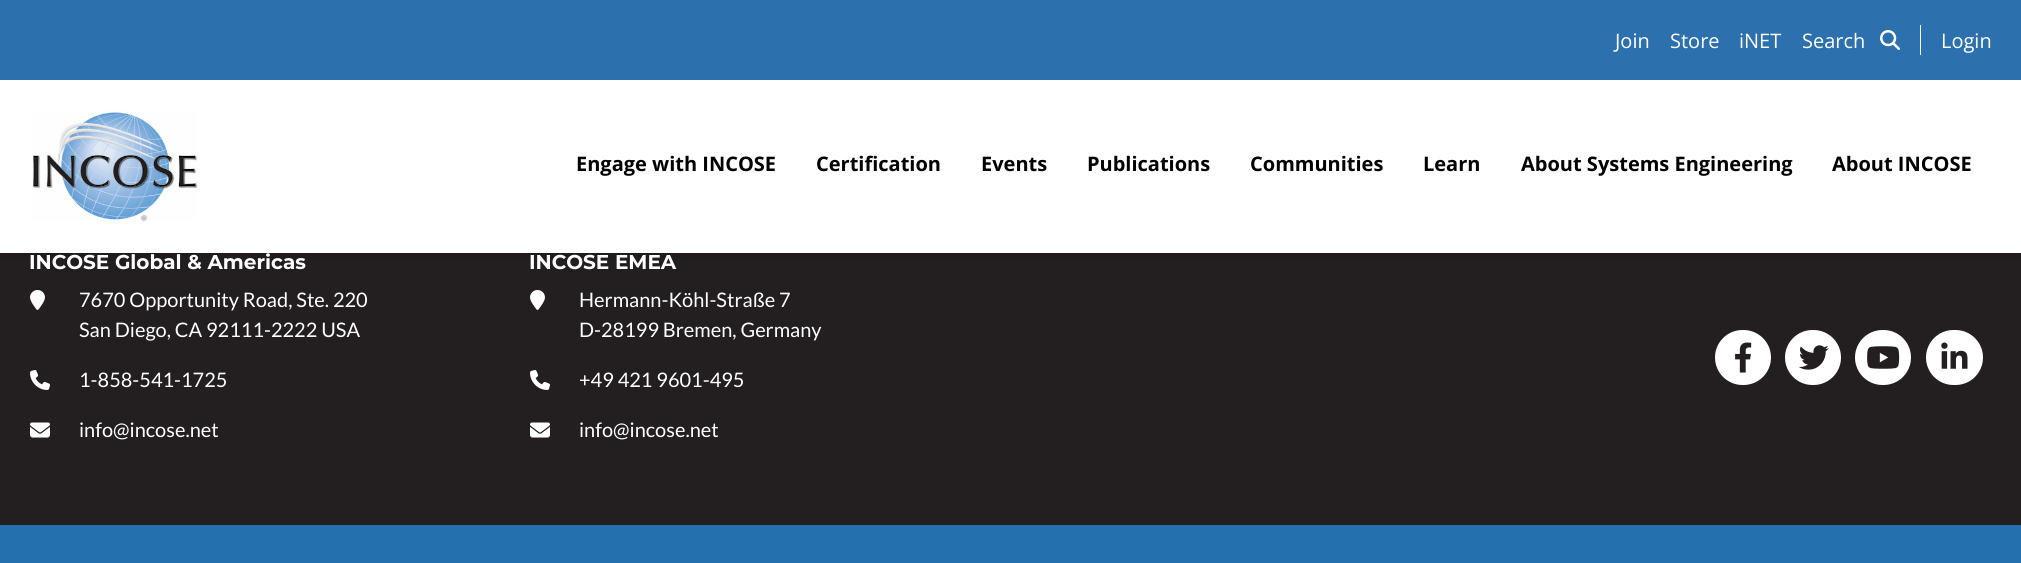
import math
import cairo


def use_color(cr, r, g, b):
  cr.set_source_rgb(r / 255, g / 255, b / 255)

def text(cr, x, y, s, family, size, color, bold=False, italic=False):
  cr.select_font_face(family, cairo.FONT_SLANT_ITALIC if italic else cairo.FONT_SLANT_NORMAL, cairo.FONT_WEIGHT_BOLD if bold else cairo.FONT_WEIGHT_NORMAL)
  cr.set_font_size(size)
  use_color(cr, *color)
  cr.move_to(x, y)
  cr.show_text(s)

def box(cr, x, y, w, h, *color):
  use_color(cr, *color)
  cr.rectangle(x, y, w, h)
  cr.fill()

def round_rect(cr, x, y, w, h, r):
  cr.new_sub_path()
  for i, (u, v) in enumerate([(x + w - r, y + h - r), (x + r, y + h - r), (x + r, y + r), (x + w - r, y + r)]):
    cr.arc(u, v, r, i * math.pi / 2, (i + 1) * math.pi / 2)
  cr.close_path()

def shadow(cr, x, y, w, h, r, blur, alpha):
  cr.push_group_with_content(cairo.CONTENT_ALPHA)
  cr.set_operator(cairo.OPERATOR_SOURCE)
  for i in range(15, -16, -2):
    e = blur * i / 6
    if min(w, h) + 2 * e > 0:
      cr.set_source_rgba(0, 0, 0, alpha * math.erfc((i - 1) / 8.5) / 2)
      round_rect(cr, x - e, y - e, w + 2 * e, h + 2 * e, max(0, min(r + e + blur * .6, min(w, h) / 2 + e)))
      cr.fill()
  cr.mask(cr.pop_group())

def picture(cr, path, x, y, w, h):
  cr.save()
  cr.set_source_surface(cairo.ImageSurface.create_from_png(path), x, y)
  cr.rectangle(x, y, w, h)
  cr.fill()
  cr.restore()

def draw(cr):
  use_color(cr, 35, 31, 32)
  cr.paint()
  use_color(cr, 0, 0, 0)
  shadow(cr, 0, 1, 2021, 253, 0, 5, 0.25)
  box(cr, 0, 80, 2021, 173, 255, 255, 255)
  box(cr, 0, 0, 2021, 80, 44, 112, 173)
  picture(cr, "img_01.png", 1880, 30, 20, 20)
  box(cr, 1920, 25, 1, 30, 255, 255, 255)
  picture(cr, "img_02.png", 32, 111, 166, 110)
  picture(cr, "img_03.png", 30, 290, 15, 20)
  picture(cr, "img_04.png", 30, 370, 20, 20)
  picture(cr, "img_05.png", 30, 422, 20, 16)
  picture(cr, "img_03.png", 530, 290, 15, 20)
  picture(cr, "img_04.png", 530, 370, 20, 20)
  picture(cr, "img_05.png", 530, 422, 20, 16)
  round_rect(cr, 1715, 330, 56, 55, 27.5)
  cr.fill()
  picture(cr, "img_06.png", 1735, 342, 17, 31)
  round_rect(cr, 1785, 330, 56, 55, 27.5)
  cr.fill()
  picture(cr, "img_07.png", 1799, 345, 30, 25)
  round_rect(cr, 1855, 330, 56, 55, 27.5)
  cr.fill()
  picture(cr, "img_08.png", 1867, 346, 33, 23)
  round_rect(cr, 1926, 330, 57, 55, 27.5)
  cr.fill()
  picture(cr, "img_09.png", 1941, 342, 27, 27)
  box(cr, 0, 525, 2021, 38, 36, 112, 174)
  text(cr, 1615, 48, "Join", "Open Sans", 20, (255, 255, 255))
  text(cr, 1670, 48, "Store", "Open Sans", 20, (255, 255, 255))
  text(cr, 1739, 48, "iNET", "Open Sans", 20, (255, 255, 255))
  text(cr, 1802, 48, "Search", "Open Sans", 20, (255, 255, 255))
  text(cr, 1941, 48, "Login", "Open Sans", 20, (255, 255, 255))
  text(cr, 576, 171, "Engage with INCOSE", "Open Sans", 20, (0, 0, 0), bold=True)
  text(cr, 816, 171, "Certification", "Open Sans", 20, (0, 0, 0), bold=True)
  text(cr, 981, 171, "Events", "Open Sans", 20, (0, 0, 0), bold=True)
  text(cr, 1087, 171, "Publications", "Open Sans", 20, (0, 0, 0), bold=True)
  text(cr, 1250, 171, "Communities", "Open Sans", 20, (0, 0, 0), bold=True)
  text(cr, 1423, 171, "Learn", "Open Sans", 20, (0, 0, 0), bold=True)
  text(cr, 1521, 171, "About Systems Engineering", "Open Sans", 20, (0, 0, 0), bold=True)
  text(cr, 1832, 171, "About INCOSE", "Open Sans", 20, (0, 0, 0), bold=True)
  text(cr, 29, 269, "INCOSE Global & Americas", "Montserrat", 20, (255, 255, 255), bold=True)
  text(cr, 79, 307, "7670 Opportunity Road, Ste. 220", "Lato", 20, (255, 255, 255))
  text(cr, 79, 337, "San Diego, CA 92111-2222 USA", "Lato", 20, (255, 255, 255))
  text(cr, 79, 387, "1-858-541-1725", "Lato", 20, (255, 255, 255))
  text(cr, 79, 437, "info@incose.net", "Lato", 20, (255, 255, 255))
  text(cr, 529, 269, "INCOSE EMEA", "Montserrat", 20, (255, 255, 255), bold=True)
  text(cr, 579, 307, "Hermann-Köhl-Straße 7", "Lato", 20, (255, 255, 255))
  text(cr, 579, 337, "D-28199 Bremen, Germany", "Lato", 20, (255, 255, 255))
  text(cr, 579, 387, "+49 421 9601-495", "Lato", 20, (255, 255, 255))
  text(cr, 579, 437, "info@incose.net", "Lato", 20, (255, 255, 255))


surface = cairo.ImageSurface(cairo.FORMAT_RGB24, 2021, 563)
cr = cairo.Context(surface)
options = cairo.FontOptions()
options.set_hint_metrics(cairo.HINT_METRICS_OFF)
options.set_hint_style(cairo.HINT_STYLE_NONE)
cr.set_font_options(options)
cr.set_miter_limit(4)
draw(cr)
surface.write_to_png("out.png")
